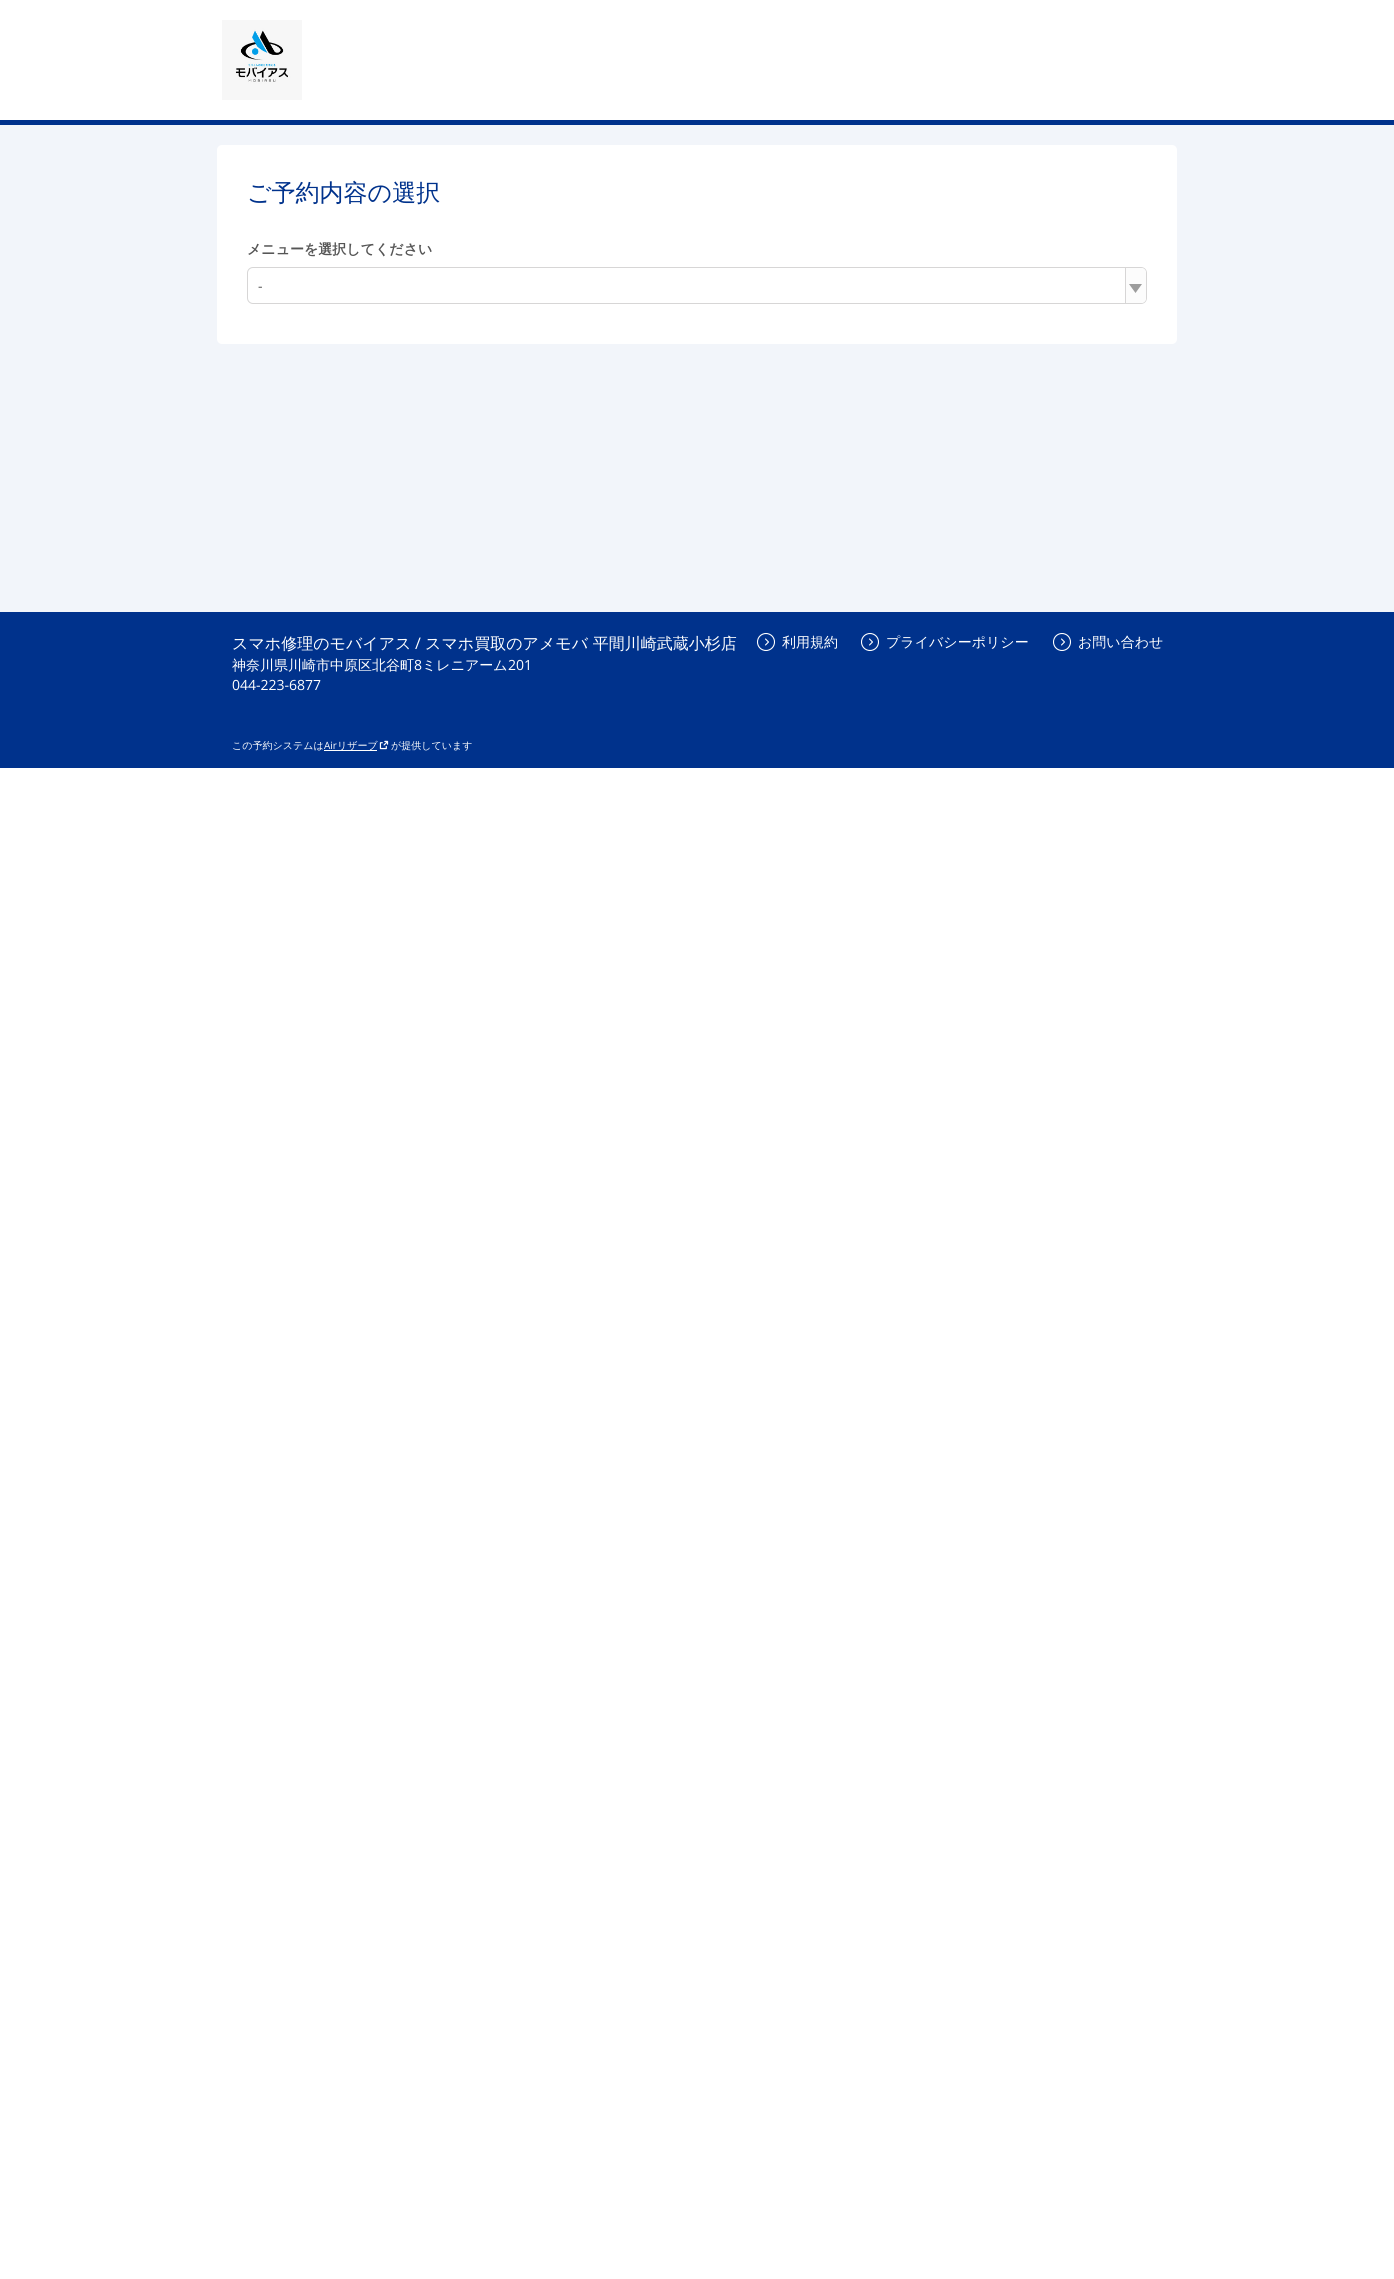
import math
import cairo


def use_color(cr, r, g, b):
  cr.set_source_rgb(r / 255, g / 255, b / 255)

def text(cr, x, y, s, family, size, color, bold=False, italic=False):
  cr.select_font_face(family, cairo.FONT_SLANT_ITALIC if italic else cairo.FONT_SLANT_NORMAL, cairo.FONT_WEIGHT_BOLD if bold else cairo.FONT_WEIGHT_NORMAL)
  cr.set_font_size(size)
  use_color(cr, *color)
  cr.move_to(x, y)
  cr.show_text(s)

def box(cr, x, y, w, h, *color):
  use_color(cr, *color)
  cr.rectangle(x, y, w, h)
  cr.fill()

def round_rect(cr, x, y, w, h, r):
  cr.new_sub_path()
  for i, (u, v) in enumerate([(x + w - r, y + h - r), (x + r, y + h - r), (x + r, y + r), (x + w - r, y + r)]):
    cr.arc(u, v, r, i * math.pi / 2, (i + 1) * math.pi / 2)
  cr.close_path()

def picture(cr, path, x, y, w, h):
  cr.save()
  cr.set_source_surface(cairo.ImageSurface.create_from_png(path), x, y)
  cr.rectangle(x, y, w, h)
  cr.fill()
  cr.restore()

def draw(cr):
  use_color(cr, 255, 255, 255)
  cr.paint()
  box(cr, 0, 120, 1394, 5, 0, 50, 140)
  picture(cr, "img_01.png", 222, 20, 80, 80)
  box(cr, 0, 125, 1394, 487, 242, 245, 250)
  use_color(cr, 255, 255, 255)
  round_rect(cr, 217, 145, 960, 199, 5)
  cr.fill()
  round_rect(cr, 247.5, 267.5, 899, 36, 5.5)
  use_color(cr, 215, 214, 214)
  cr.set_line_width(1)
  cr.stroke()
  use_color(cr, 252, 252, 252)
  cr.new_path()
  cr.move_to(1125, 268)
  cr.line_to(1141, 268)
  cr.curve_to(1144, 268, 1146, 270, 1146, 273)
  cr.line_to(1146, 298)
  cr.curve_to(1146, 301, 1144, 303, 1141, 303)
  cr.line_to(1125, 303)
  cr.close_path()
  cr.fill()
  box(cr, 1125, 268, 1, 35, 215, 214, 214)
  picture(cr, "img_02.png", 1129, 284, 13, 9)
  box(cr, 0, 612, 1394, 156, 0, 50, 140)
  picture(cr, "img_03.png", 757, 633, 18, 18)
  picture(cr, "img_03.png", 861, 633, 18, 18)
  picture(cr, "img_03.png", 1053, 633, 18, 18)
  box(cr, 324, 750, 53, 1, 255, 255, 255)
  picture(cr, "img_04.png", 379, 740, 10, 10)
  text(cr, 247, 201, "ご予約内容の選択", "WenQuanYi Zen Hei Medium", 24, (0, 50, 140))
  text(cr, 247, 254, "メニューを選択してください", "WenQuanYi Zen Hei", 14, (85, 85, 85), bold=True)
  text(cr, 258, 291, "-", "Open Sans", 14, (85, 85, 85))
  text(cr, 232, 649, "スマホ修理のモバイアス", "WenQuanYi Zen Hei Medium", 16, (255, 255, 255))
  text(cr, 415, 649, "/", "Open Sans", 16, (255, 255, 255))
  text(cr, 425, 649, "スマホ買取のアメモバ 平間川崎武蔵小杉店", "WenQuanYi Zen Hei Medium", 16, (255, 255, 255))
  text(cr, 232, 670, "神奈川県川崎市中原区北谷町", "WenQuanYi Zen Hei Medium", 14, (255, 255, 255))
  text(cr, 414, 670, "8", "Open Sans", 14, (255, 255, 255))
  text(cr, 422, 670, "ミレニアーム", "WenQuanYi Zen Hei Medium", 14, (255, 255, 255))
  text(cr, 508, 670, "201", "Open Sans", 14, (255, 255, 255))
  text(cr, 232, 690, "044-223-6877", "Open Sans", 14, (255, 255, 255))
  text(cr, 782, 647, "利用規約", "WenQuanYi Zen Hei Medium", 14, (255, 255, 255))
  text(cr, 886, 647, "プライバシーポリシー", "WenQuanYi Zen Hei Medium", 14, (255, 255, 255))
  text(cr, 1078, 647, "お問い合わせ", "WenQuanYi Zen Hei Medium", 14, (255, 255, 255))
  text(cr, 232, 749, "この予約システムは", "WenQuanYi Zen Hei Medium", 10, (255, 255, 255))
  text(cr, 324, 749, "Air", "Open Sans", 10, (255, 255, 255))
  text(cr, 337, 749, "リザーブ", "WenQuanYi Zen Hei Medium", 10, (255, 255, 255))
  text(cr, 391, 749, "が提供しています", "WenQuanYi Zen Hei Medium", 10, (255, 255, 255))


surface = cairo.ImageSurface(cairo.FORMAT_RGB24, 1394, 2279)
cr = cairo.Context(surface)
options = cairo.FontOptions()
options.set_hint_metrics(cairo.HINT_METRICS_OFF)
options.set_hint_style(cairo.HINT_STYLE_NONE)
cr.set_font_options(options)
cr.set_miter_limit(4)
draw(cr)
surface.write_to_png("out.png")
